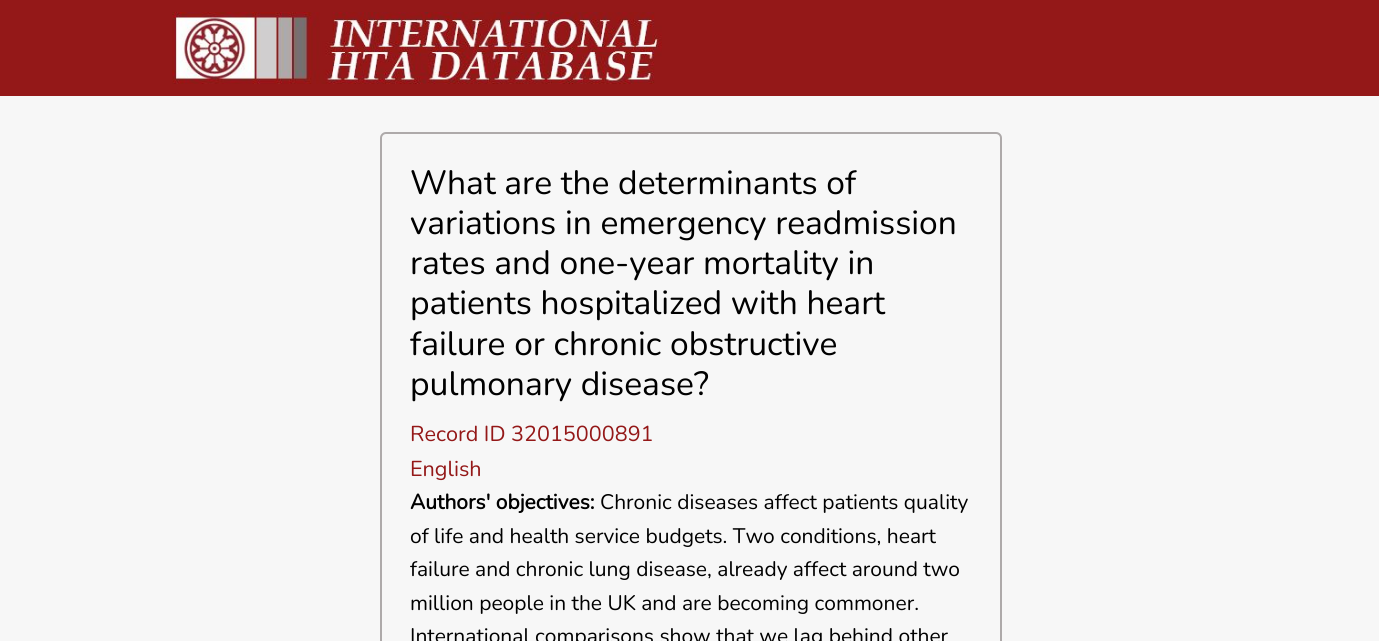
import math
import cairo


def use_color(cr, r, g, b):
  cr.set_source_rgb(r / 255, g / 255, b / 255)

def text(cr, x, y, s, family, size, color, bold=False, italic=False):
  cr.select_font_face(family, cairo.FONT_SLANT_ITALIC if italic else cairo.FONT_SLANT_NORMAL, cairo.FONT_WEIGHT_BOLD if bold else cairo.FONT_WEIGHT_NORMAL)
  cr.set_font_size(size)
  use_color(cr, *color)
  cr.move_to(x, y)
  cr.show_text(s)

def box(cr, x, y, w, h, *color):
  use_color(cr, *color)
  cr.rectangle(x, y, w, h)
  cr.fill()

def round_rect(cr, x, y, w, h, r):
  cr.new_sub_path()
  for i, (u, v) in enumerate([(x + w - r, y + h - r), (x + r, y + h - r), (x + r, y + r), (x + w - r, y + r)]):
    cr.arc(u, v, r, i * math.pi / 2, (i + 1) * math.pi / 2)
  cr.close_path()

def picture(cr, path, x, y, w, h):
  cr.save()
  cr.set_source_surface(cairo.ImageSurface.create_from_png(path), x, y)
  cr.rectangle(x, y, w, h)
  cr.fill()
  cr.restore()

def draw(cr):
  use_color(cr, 247, 247, 247)
  cr.paint()
  box(cr, 0, 0, 1379, 96, 148, 24, 24)
  picture(cr, "img_01.png", 172, 12, 490, 72)
  round_rect(cr, 381, 133, 620, 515, 5)
  use_color(cr, 174, 170, 170)
  cr.stroke()
  text(cr, 410, 194, "What are the determinants of", "Nunito ExtraLight", 33.6, (0, 0, 0))
  text(cr, 410, 234, "variations in emergency readmission", "Nunito ExtraLight", 33.6, (0, 0, 0))
  text(cr, 410, 274, "rates and one-year mortality in", "Nunito ExtraLight", 33.6, (0, 0, 0))
  text(cr, 410, 314, "patients hospitalized with heart", "Nunito ExtraLight", 33.6, (0, 0, 0))
  text(cr, 410, 355, "failure or chronic obstructive", "Nunito ExtraLight", 33.6, (0, 0, 0))
  text(cr, 410, 395, "pulmonary disease?", "Nunito ExtraLight", 33.6, (0, 0, 0))
  text(cr, 410, 441, "Record ID 32015000891", "Nunito ExtraLight", 21.6, (148, 24, 24))
  text(cr, 410, 476, "English", "Nunito ExtraLight", 21.6, (148, 24, 24))
  text(cr, 410, 509, "Authors' objectives:", "Nunito", 21, (0, 0, 0), bold=True)
  text(cr, 600, 509, "Chronic diseases affect patients quality", "Nunito ExtraLight", 21, (0, 0, 0))
  text(cr, 410, 543, "of life and health service budgets. Two conditions, heart", "Nunito ExtraLight", 21, (0, 0, 0))
  text(cr, 410, 576, "failure and chronic lung disease, already affect around two", "Nunito ExtraLight", 21, (0, 0, 0))
  text(cr, 410, 610, "million people in the UK and are becoming commoner.", "Nunito ExtraLight", 21, (0, 0, 0))
  text(cr, 410, 643, "International comparisons show that we lag behind other", "Nunito ExtraLight", 21, (0, 0, 0))


surface = cairo.ImageSurface(cairo.FORMAT_RGB24, 1379, 641)
cr = cairo.Context(surface)
options = cairo.FontOptions()
options.set_hint_metrics(cairo.HINT_METRICS_OFF)
options.set_hint_style(cairo.HINT_STYLE_NONE)
cr.set_font_options(options)
cr.set_miter_limit(4)
draw(cr)
surface.write_to_png("out.png")
